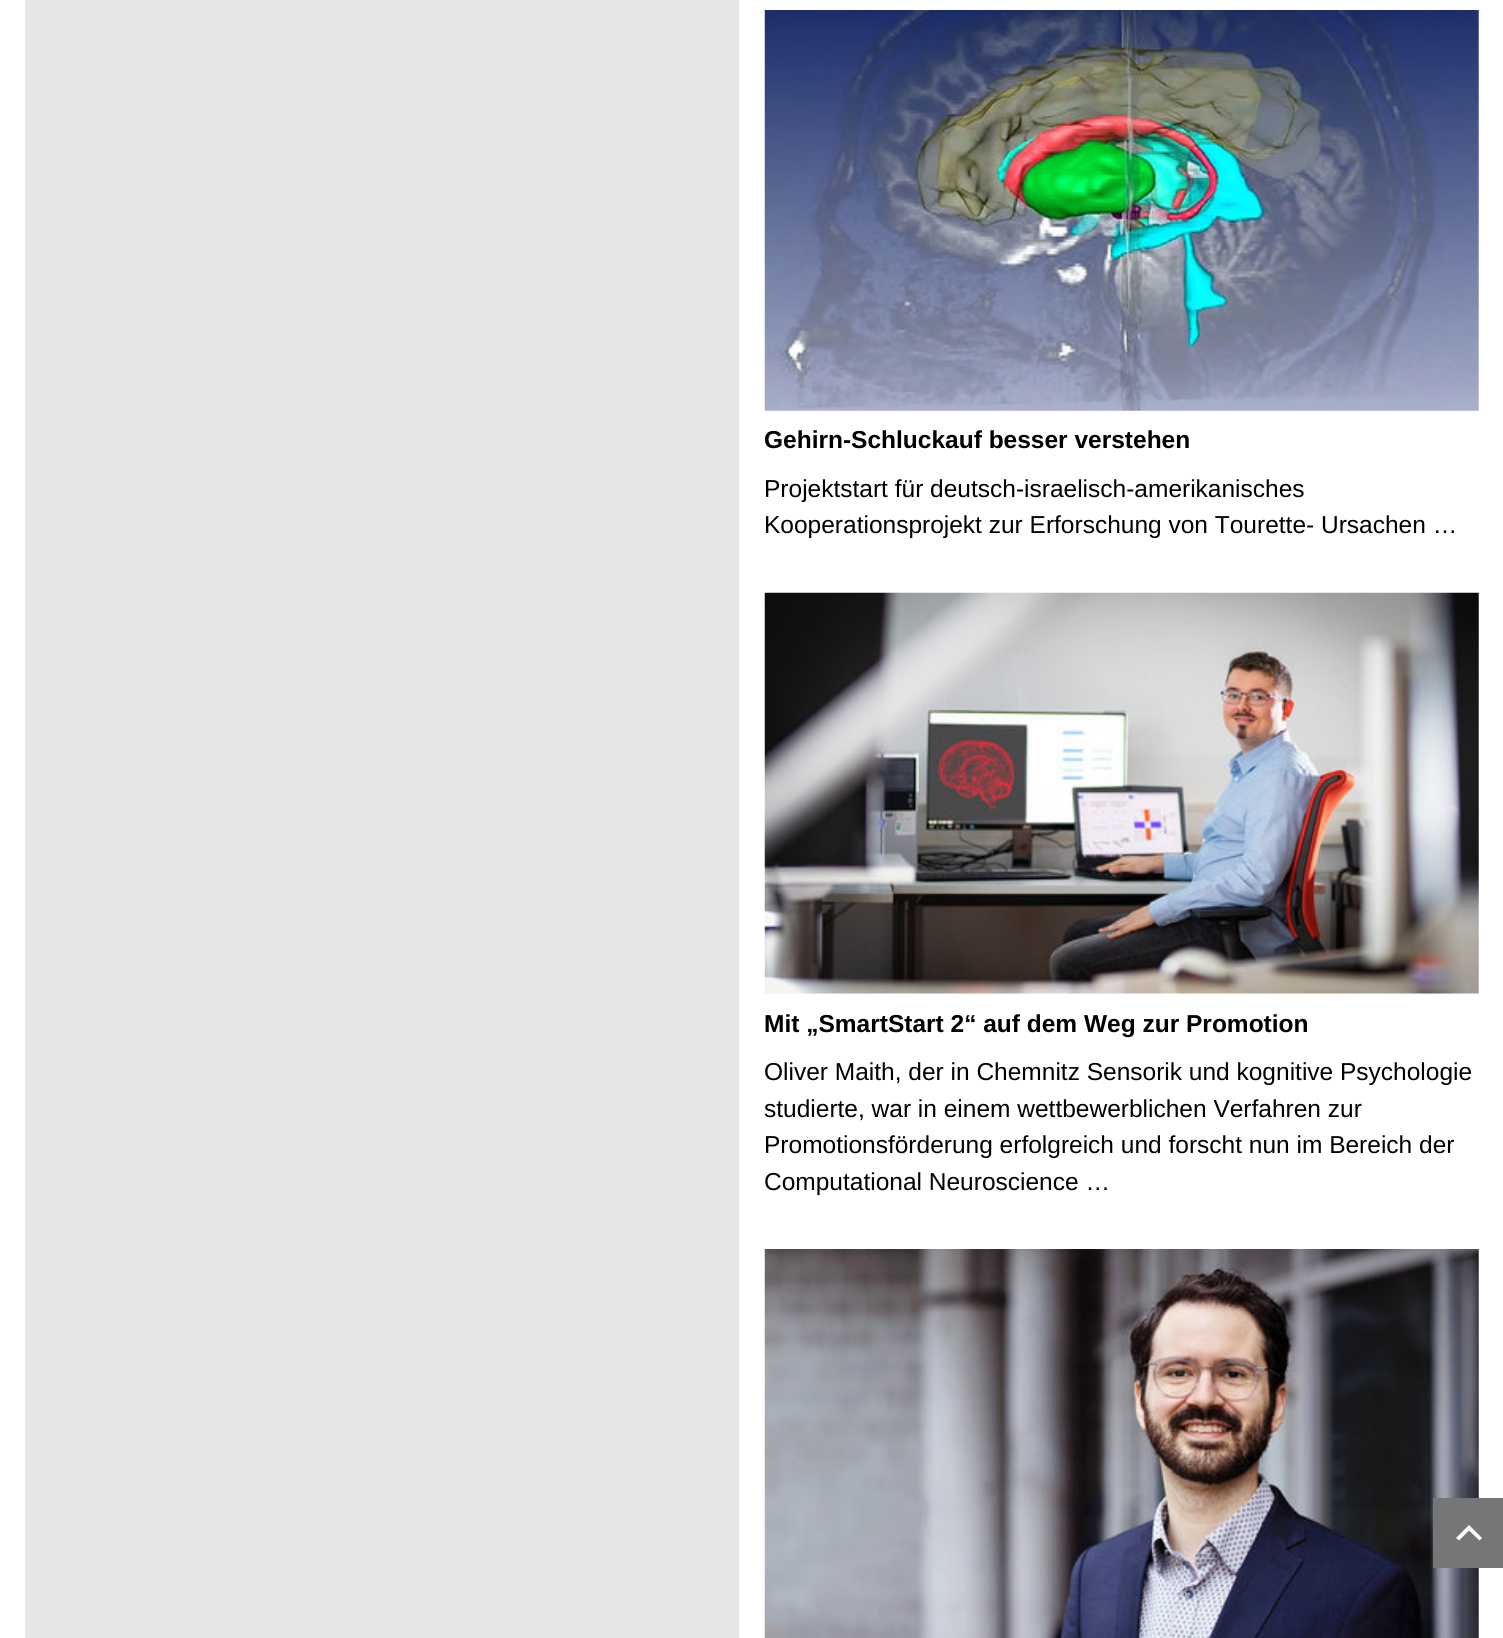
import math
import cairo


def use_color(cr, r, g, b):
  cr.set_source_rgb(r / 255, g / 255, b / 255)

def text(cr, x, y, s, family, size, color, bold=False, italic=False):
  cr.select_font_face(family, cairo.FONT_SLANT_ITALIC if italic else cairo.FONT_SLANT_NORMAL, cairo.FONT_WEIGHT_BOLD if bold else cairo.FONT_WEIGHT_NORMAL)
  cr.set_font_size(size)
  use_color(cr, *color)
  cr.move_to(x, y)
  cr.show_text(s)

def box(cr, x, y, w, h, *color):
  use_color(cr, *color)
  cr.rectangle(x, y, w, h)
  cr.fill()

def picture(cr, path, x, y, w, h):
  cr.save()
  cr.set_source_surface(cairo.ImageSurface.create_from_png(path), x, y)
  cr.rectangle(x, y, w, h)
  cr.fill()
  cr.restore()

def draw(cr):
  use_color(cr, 255, 255, 255)
  cr.paint()
  box(cr, 25, 0, 714, 1638, 230, 230, 230)
  picture(cr, "img_01.png", 764, 10, 715, 401)
  picture(cr, "img_02.png", 764, 592, 715, 402)
  picture(cr, "img_03.png", 764, 1249, 715, 389)
  box(cr, 1433, 1498, 70, 70, 118, 118, 118)
  use_color(cr, 255, 255, 255)
  cr.new_path()
  cr.move_to(1479.5, 1540.5)
  cr.line_to(1469, 1530.5)
  cr.line_to(1459, 1540.5)
  cr.line_to(1456, 1538)
  cr.line_to(1469, 1525)
  cr.line_to(1482, 1538)
  cr.close_path()
  cr.fill()
  text(cr, 764, 448, "Gehirn-Schluckauf besser verstehen", "Liberation Sans", 24.5, (0, 0, 0), bold=True)
  text(cr, 764, 497, "Projektstart für deutsch-israelisch-amerikanisches", "Liberation Sans", 24.5, (0, 0, 0))
  text(cr, 764, 533, "Kooperationsprojekt zur Erforschung von Tourette- Ursachen …", "Liberation Sans", 24.5, (0, 0, 0))
  text(cr, 764, 1032, "Mit „SmartStart 2“ auf dem Weg zur Promotion", "Liberation Sans", 24.5, (0, 0, 0), bold=True)
  text(cr, 764, 1080, "Oliver Maith, der in Chemnitz Sensorik und kognitive Psychologie", "Liberation Sans", 24.5, (0, 0, 0))
  text(cr, 764, 1117, "studierte, war in einem wettbewerblichen Verfahren zur", "Liberation Sans", 24.5, (0, 0, 0))
  text(cr, 764, 1153, "Promotionsförderung erfolgreich und forscht nun im Bereich der", "Liberation Sans", 24.5, (0, 0, 0))
  text(cr, 764, 1190, "Computational Neuroscience …", "Liberation Sans", 24.5, (0, 0, 0))


surface = cairo.ImageSurface(cairo.FORMAT_RGB24, 1503, 1638)
cr = cairo.Context(surface)
options = cairo.FontOptions()
options.set_hint_metrics(cairo.HINT_METRICS_OFF)
options.set_hint_style(cairo.HINT_STYLE_NONE)
cr.set_font_options(options)
cr.set_miter_limit(4)
draw(cr)
surface.write_to_png("out.png")
